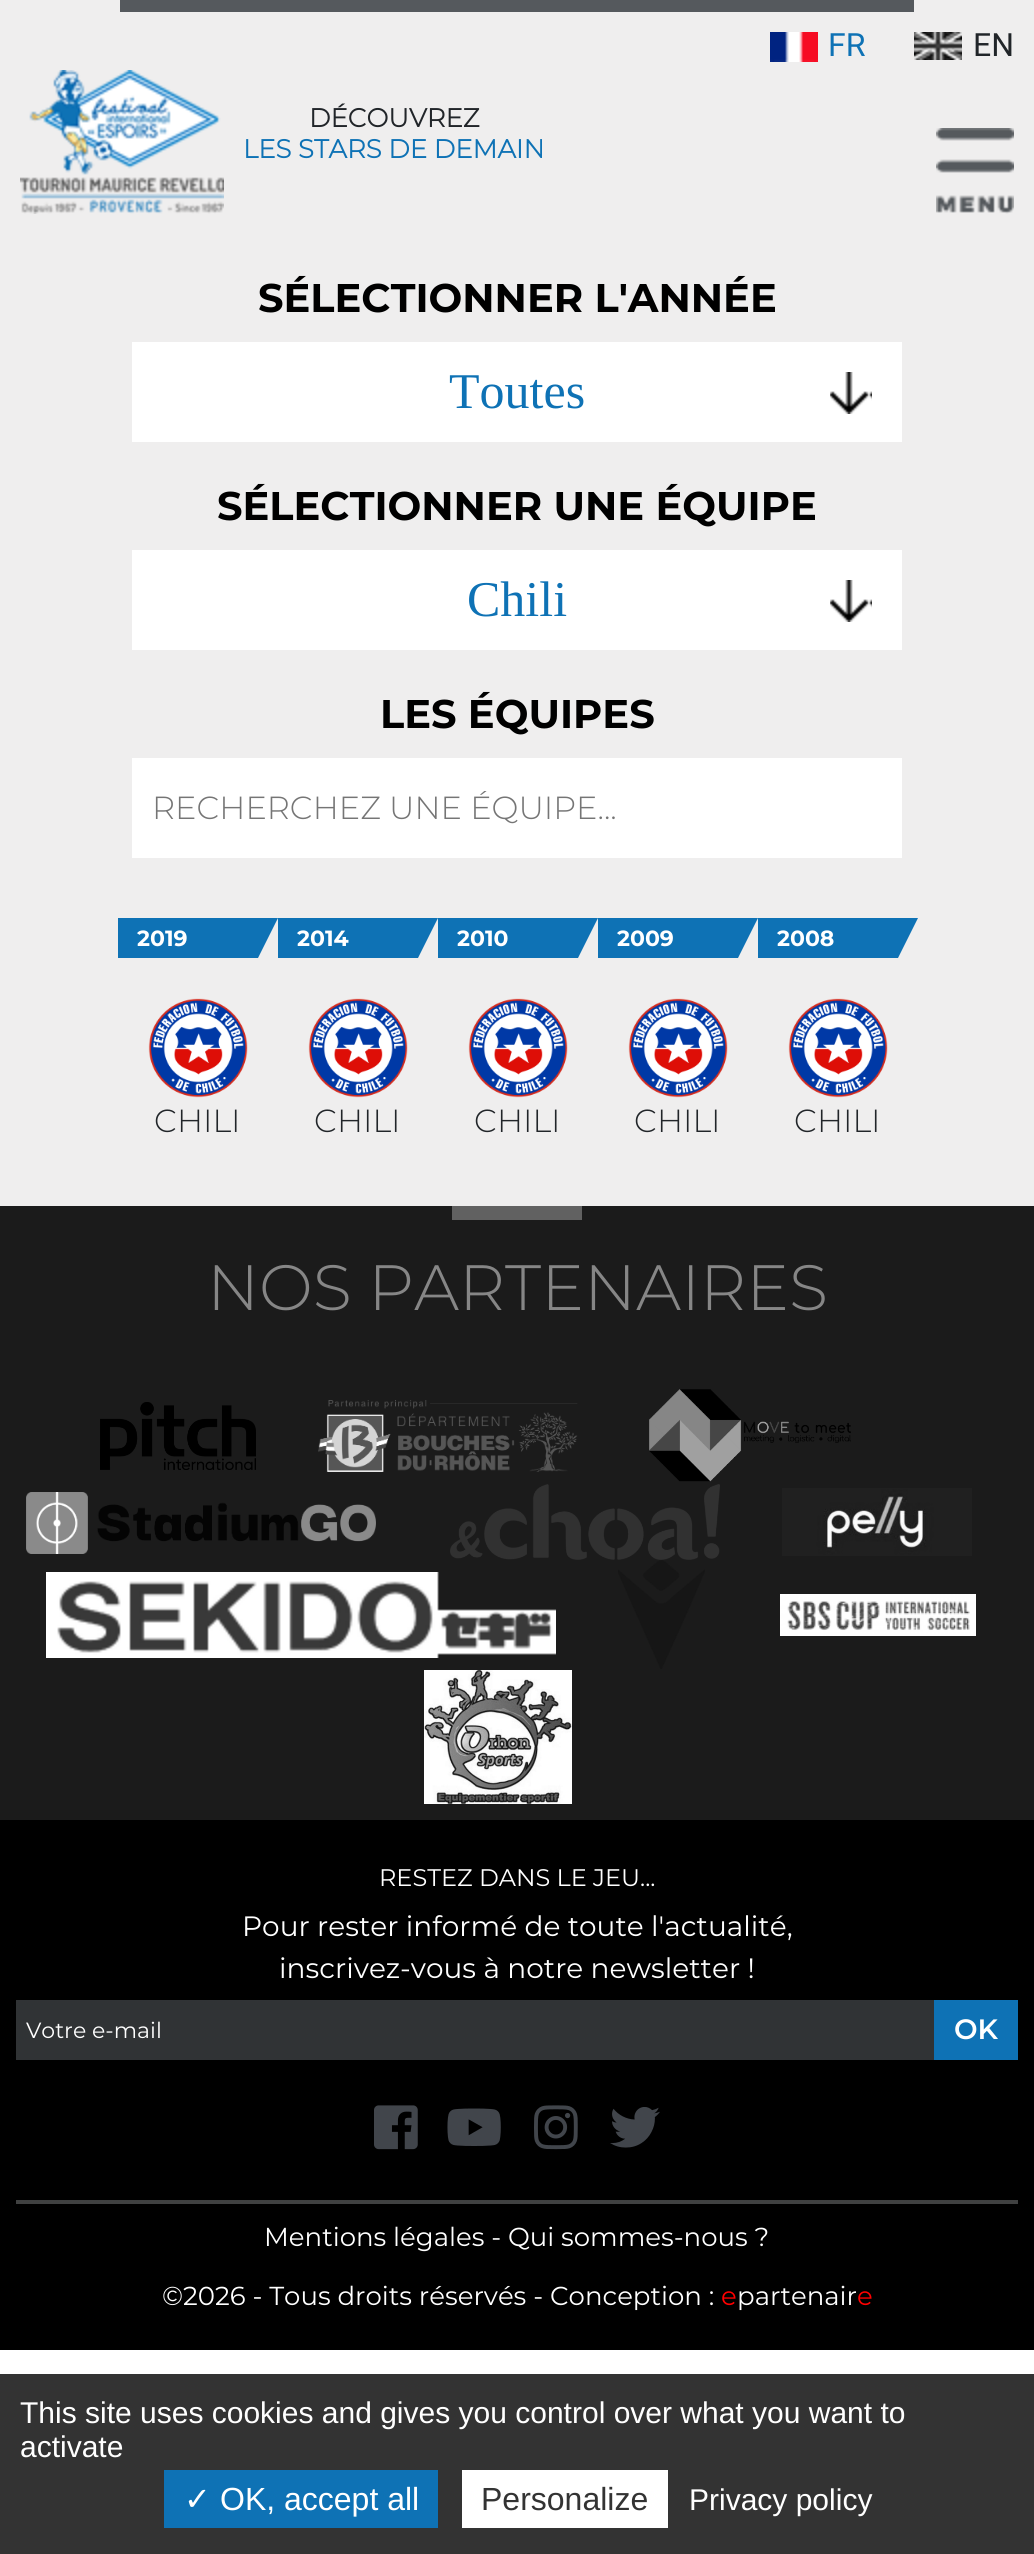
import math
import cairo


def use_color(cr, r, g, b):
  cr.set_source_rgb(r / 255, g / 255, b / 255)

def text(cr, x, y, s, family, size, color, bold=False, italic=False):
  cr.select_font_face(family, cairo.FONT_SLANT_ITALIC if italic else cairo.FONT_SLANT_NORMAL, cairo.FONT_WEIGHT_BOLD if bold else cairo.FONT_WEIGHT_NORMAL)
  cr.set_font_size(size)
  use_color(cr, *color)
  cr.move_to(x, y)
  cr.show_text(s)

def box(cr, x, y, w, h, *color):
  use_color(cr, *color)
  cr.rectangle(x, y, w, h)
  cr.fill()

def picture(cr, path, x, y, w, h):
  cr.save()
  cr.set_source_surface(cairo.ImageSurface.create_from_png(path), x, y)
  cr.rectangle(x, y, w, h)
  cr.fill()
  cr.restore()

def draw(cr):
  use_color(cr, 255, 255, 255)
  cr.paint()
  box(cr, 0, 0, 1034, 1206, 239, 238, 238)
  box(cr, 120, 0, 794, 12, 85, 89, 93)
  picture(cr, "img_01.png", 770, 32, 48, 30)
  picture(cr, "img_02.png", 914, 32, 48, 28)
  picture(cr, "img_03.png", 20, 70, 204, 144)
  picture(cr, "img_04.png", 936, 128, 78, 86)
  box(cr, 132, 342, 770, 100, 255, 255, 255)
  picture(cr, "img_05.png", 830, 372, 42, 42)
  box(cr, 132, 550, 770, 100, 255, 255, 255)
  picture(cr, "img_05.png", 830, 580, 42, 42)
  box(cr, 132, 758, 770, 100, 255, 255, 255)
  box(cr, 118, 918, 800, 40, 14, 114, 181)
  use_color(cr, 239, 238, 238)
  cr.new_path()
  cr.move_to(278, 958)
  cr.line_to(258, 958)
  cr.line_to(278, 918)
  cr.close_path()
  cr.fill()
  picture(cr, "img_06.png", 148, 998, 100, 100)
  cr.new_path()
  cr.move_to(438, 958)
  cr.line_to(418, 958)
  cr.line_to(438, 918)
  cr.close_path()
  cr.fill()
  picture(cr, "img_07.png", 308, 998, 100, 100)
  cr.new_path()
  cr.move_to(598, 958)
  cr.line_to(578, 958)
  cr.line_to(598, 918)
  cr.close_path()
  cr.fill()
  picture(cr, "img_08.png", 468, 998, 100, 100)
  cr.new_path()
  cr.move_to(758, 958)
  cr.line_to(738, 958)
  cr.line_to(758, 918)
  cr.close_path()
  cr.fill()
  picture(cr, "img_06.png", 628, 998, 100, 100)
  cr.new_path()
  cr.move_to(918, 958)
  cr.line_to(898, 958)
  cr.line_to(918, 918)
  cr.close_path()
  cr.fill()
  picture(cr, "img_06.png", 788, 998, 100, 100)
  box(cr, 0, 1206, 1034, 614, 27, 27, 27)
  box(cr, 452, 1206, 130, 14, 97, 97, 97)
  picture(cr, "img_09.png", 100, 1402, 156, 68)
  picture(cr, "img_10.png", 318, 1400, 260, 72)
  picture(cr, "img_11.png", 649, 1389, 202, 93)
  picture(cr, "img_12.png", 26, 1492, 350, 62)
  picture(cr, "img_13.png", 450, 1484, 270, 76)
  picture(cr, "img_14.png", 782, 1488, 190, 68)
  picture(cr, "img_15.png", 46, 1572, 510, 86)
  picture(cr, "img_16.png", 618, 1560, 87, 109)
  picture(cr, "img_17.png", 780, 1594, 196, 42)
  picture(cr, "img_18.png", 424, 1670, 148, 134)
  box(cr, 0, 1820, 1034, 530, 0, 0, 0)
  box(cr, 16, 2000, 918, 60, 48, 51, 53)
  box(cr, 934, 2000, 84, 60, 14, 114, 181)
  box(cr, 16, 2200, 1002, 4, 64, 65, 65)
  picture(cr, "img_19.png", 374, 2105, 44, 45)
  picture(cr, "img_20.png", 447, 2108, 54, 38)
  picture(cr, "img_21.png", 534, 2105, 44, 45)
  picture(cr, "img_22.png", 610, 2107, 50, 41)
  box(cr, 0, 2374, 1034, 180, 51, 51, 51)
  box(cr, 164, 2470, 274, 58, 14, 114, 181)
  box(cr, 462, 2470, 206, 58, 255, 255, 255)
  text(cr, 828, 56, "FR", "Roboto", 32, (14, 114, 181))
  text(cr, 973, 56, "EN", "Roboto", 32, (33, 37, 41))
  text(cr, 309, 127, "DÉCOUVREZ", "Montserrat", 26, (33, 37, 41), bold=True)
  text(cr, 243, 158, "LES STARS DE DEMAIN", "Montserrat", 26, (14, 114, 181), bold=True)
  text(cr, 258, 312, "SÉLECTIONNER L'ANNÉE", "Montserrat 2", 40, (0, 0, 0), bold=True)
  text(cr, 449, 408, "Toutes", "Liberation Serif", 50, (14, 114, 181))
  text(cr, 217, 520, "SÉLECTIONNER UNE ÉQUIPE", "Montserrat 2", 40, (0, 0, 0), bold=True)
  text(cr, 467, 616, "Chili", "Liberation Serif", 50, (14, 114, 181))
  text(cr, 380, 728, "LES ÉQUIPES", "Montserrat 2", 40, (0, 0, 0), bold=True)
  text(cr, 152, 819, "RECHERCHEZ UNE ÉQUIPE...", "Montserrat Light", 32, (117, 117, 117))
  text(cr, 137, 946, "2019", "Montserrat 2", 22, (255, 255, 255), bold=True)
  text(cr, 154, 1132, "CHILI", "Montserrat Light", 32, (33, 37, 41))
  text(cr, 297, 946, "2014", "Montserrat 2", 22, (255, 255, 255), bold=True)
  text(cr, 314, 1132, "CHILI", "Montserrat Light", 32, (33, 37, 41))
  text(cr, 457, 946, "2010", "Montserrat 2", 22, (255, 255, 255), bold=True)
  text(cr, 474, 1132, "CHILI", "Montserrat Light", 32, (33, 37, 41))
  text(cr, 617, 946, "2009", "Montserrat 2", 22, (255, 255, 255), bold=True)
  text(cr, 634, 1132, "CHILI", "Montserrat Light", 32, (33, 37, 41))
  text(cr, 777, 946, "2008", "Montserrat 2", 22, (255, 255, 255), bold=True)
  text(cr, 794, 1132, "CHILI", "Montserrat Light", 32, (33, 37, 41))
  text(cr, 207, 1310, "NOS PARTENAIRES", "Montserrat Light", 64, (134, 134, 134))
  text(cr, 379, 1886, "RESTEZ DANS LE JEU...", "Montserrat", 24, (255, 255, 255))
  text(cr, 242, 1936, "Pour rester informé de toute l'actualité,", "Montserrat", 28, (255, 255, 255))
  text(cr, 279, 1978, "inscrivez-vous à notre newsletter !", "Montserrat", 28, (255, 255, 255))
  text(cr, 26, 2038, "Votre e-mail", "Montserrat", 22, (255, 255, 255))
  text(cr, 954, 2039, "OK", "Montserrat SemiBold", 28, (255, 255, 255))
  text(cr, 264, 2246, "Mentions légales - Qui sommes-nous ?", "Montserrat", 26, (255, 255, 255))
  text(cr, 162, 2305, "©2026 - Tous droits réservés - Conception :", "Montserrat", 26, (255, 255, 255))
  text(cr, 721, 2305, "e", "Montserrat", 26, (255, 0, 0))
  text(cr, 737, 2305, "partenair", "Montserrat", 26, (255, 255, 255))
  text(cr, 857, 2305, "e", "Montserrat", 26, (255, 0, 0))
  text(cr, 20, 2423, "This site uses cookies and gives you control over what you want to", "Liberation Sans", 30, (255, 255, 255))
  text(cr, 20, 2457, "activate", "Liberation Sans", 30, (255, 255, 255))
  text(cr, 184, 2510, "✓", "DejaVu Sans", 32, (255, 255, 255))
  text(cr, 220, 2510, "OK, accept all", "Liberation Sans", 32, (255, 255, 255))
  text(cr, 481, 2510, "Personalize", "Liberation Sans", 32, (51, 51, 51))
  text(cr, 689, 2510, "Privacy policy", "Liberation Sans", 30, (255, 255, 255))


surface = cairo.ImageSurface(cairo.FORMAT_RGB24, 1034, 2554)
cr = cairo.Context(surface)
options = cairo.FontOptions()
options.set_hint_metrics(cairo.HINT_METRICS_OFF)
options.set_hint_style(cairo.HINT_STYLE_NONE)
cr.set_font_options(options)
cr.set_miter_limit(4)
draw(cr)
surface.write_to_png("out.png")
